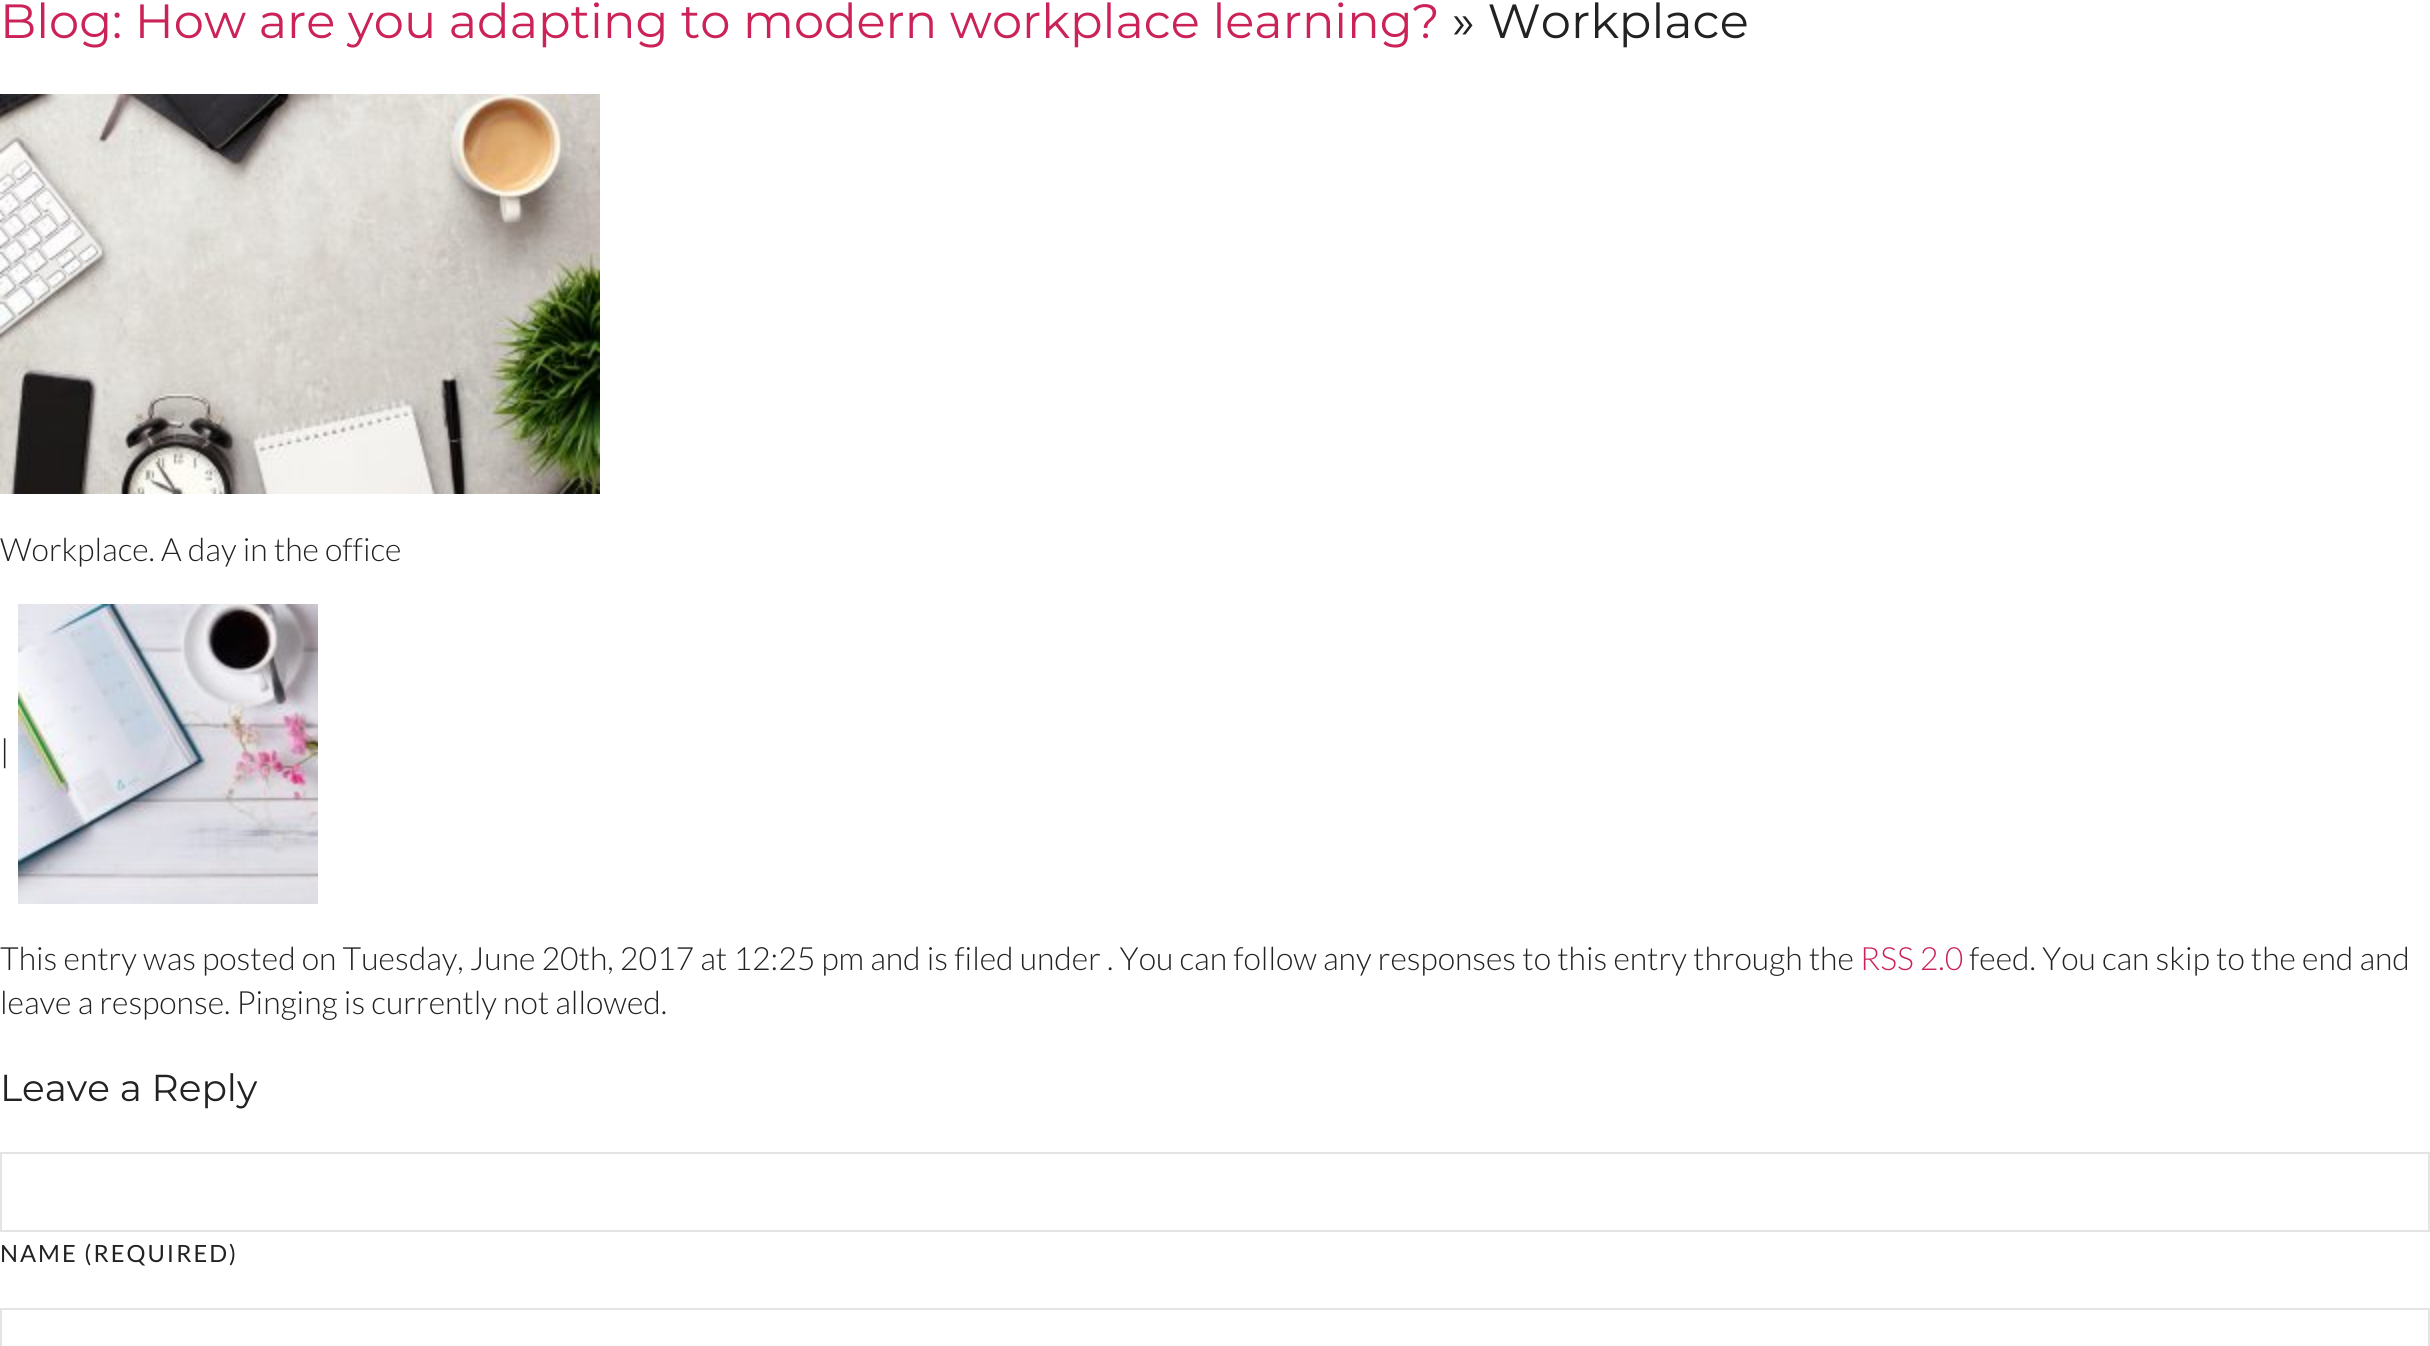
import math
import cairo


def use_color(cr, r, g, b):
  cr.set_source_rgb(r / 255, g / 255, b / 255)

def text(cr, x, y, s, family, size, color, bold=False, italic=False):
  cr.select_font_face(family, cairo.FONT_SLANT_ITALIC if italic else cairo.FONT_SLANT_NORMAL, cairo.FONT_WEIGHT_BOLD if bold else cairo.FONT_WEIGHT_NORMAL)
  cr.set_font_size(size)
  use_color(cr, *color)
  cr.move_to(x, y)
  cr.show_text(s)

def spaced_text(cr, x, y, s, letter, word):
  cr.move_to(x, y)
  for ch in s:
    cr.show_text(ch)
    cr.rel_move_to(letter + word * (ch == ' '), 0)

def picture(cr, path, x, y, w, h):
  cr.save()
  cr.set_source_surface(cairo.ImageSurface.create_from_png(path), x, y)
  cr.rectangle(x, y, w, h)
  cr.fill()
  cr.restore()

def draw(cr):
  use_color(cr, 255, 255, 255)
  cr.paint()
  picture(cr, "img_01.png", 0, 94, 600, 400)
  picture(cr, "img_02.png", 18, 604, 300, 300)
  cr.rectangle(1, 1153, 2428, 78)
  use_color(cr, 228, 228, 228)
  cr.stroke()
  cr.rectangle(1, 1309, 2428, 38)
  cr.stroke()
  text(cr, 0, 38, "Blog: How are you adapting to modern workplace learning?", "Montserrat", 48, (203, 34, 87))
  text(cr, 1452, 38, "» Workplace", "Montserrat", 48, (34, 34, 34))
  text(cr, 0, 561, "Workplace. A day in the office", "Lato Light", 32, (34, 34, 34))
  text(cr, 0, 762, "|", "Montserrat Light", 32, (34, 34, 34))
  text(cr, 0, 970, "This entry was posted on Tuesday, June 20th, 2017 at 12:25 pm and is filed under . You can follow any responses to this entry through the", "Lato Light", 32, (34, 34, 34))
  text(cr, 1860, 970, "RSS 2.0", "Lato Light", 32, (203, 34, 87))
  text(cr, 1969, 970, "feed. You can skip to the end and", "Lato Light", 32, (34, 34, 34))
  text(cr, 0, 1014, "leave a response. Pinging is currently not allowed.", "Lato Light", 32, (34, 34, 34))
  text(cr, 0, 1101, "Leave a Reply", "Montserrat", 37.5, (34, 34, 34))
  cr.select_font_face("Lato")
  cr.set_font_size(23.75)
  spaced_text(cr, 0, 1262, "NAME (REQUIRED)", 2, 0)


surface = cairo.ImageSurface(cairo.FORMAT_RGB24, 2430, 1346)
cr = cairo.Context(surface)
options = cairo.FontOptions()
options.set_hint_metrics(cairo.HINT_METRICS_OFF)
options.set_hint_style(cairo.HINT_STYLE_NONE)
cr.set_font_options(options)
cr.set_miter_limit(4)
draw(cr)
surface.write_to_png("out.png")
